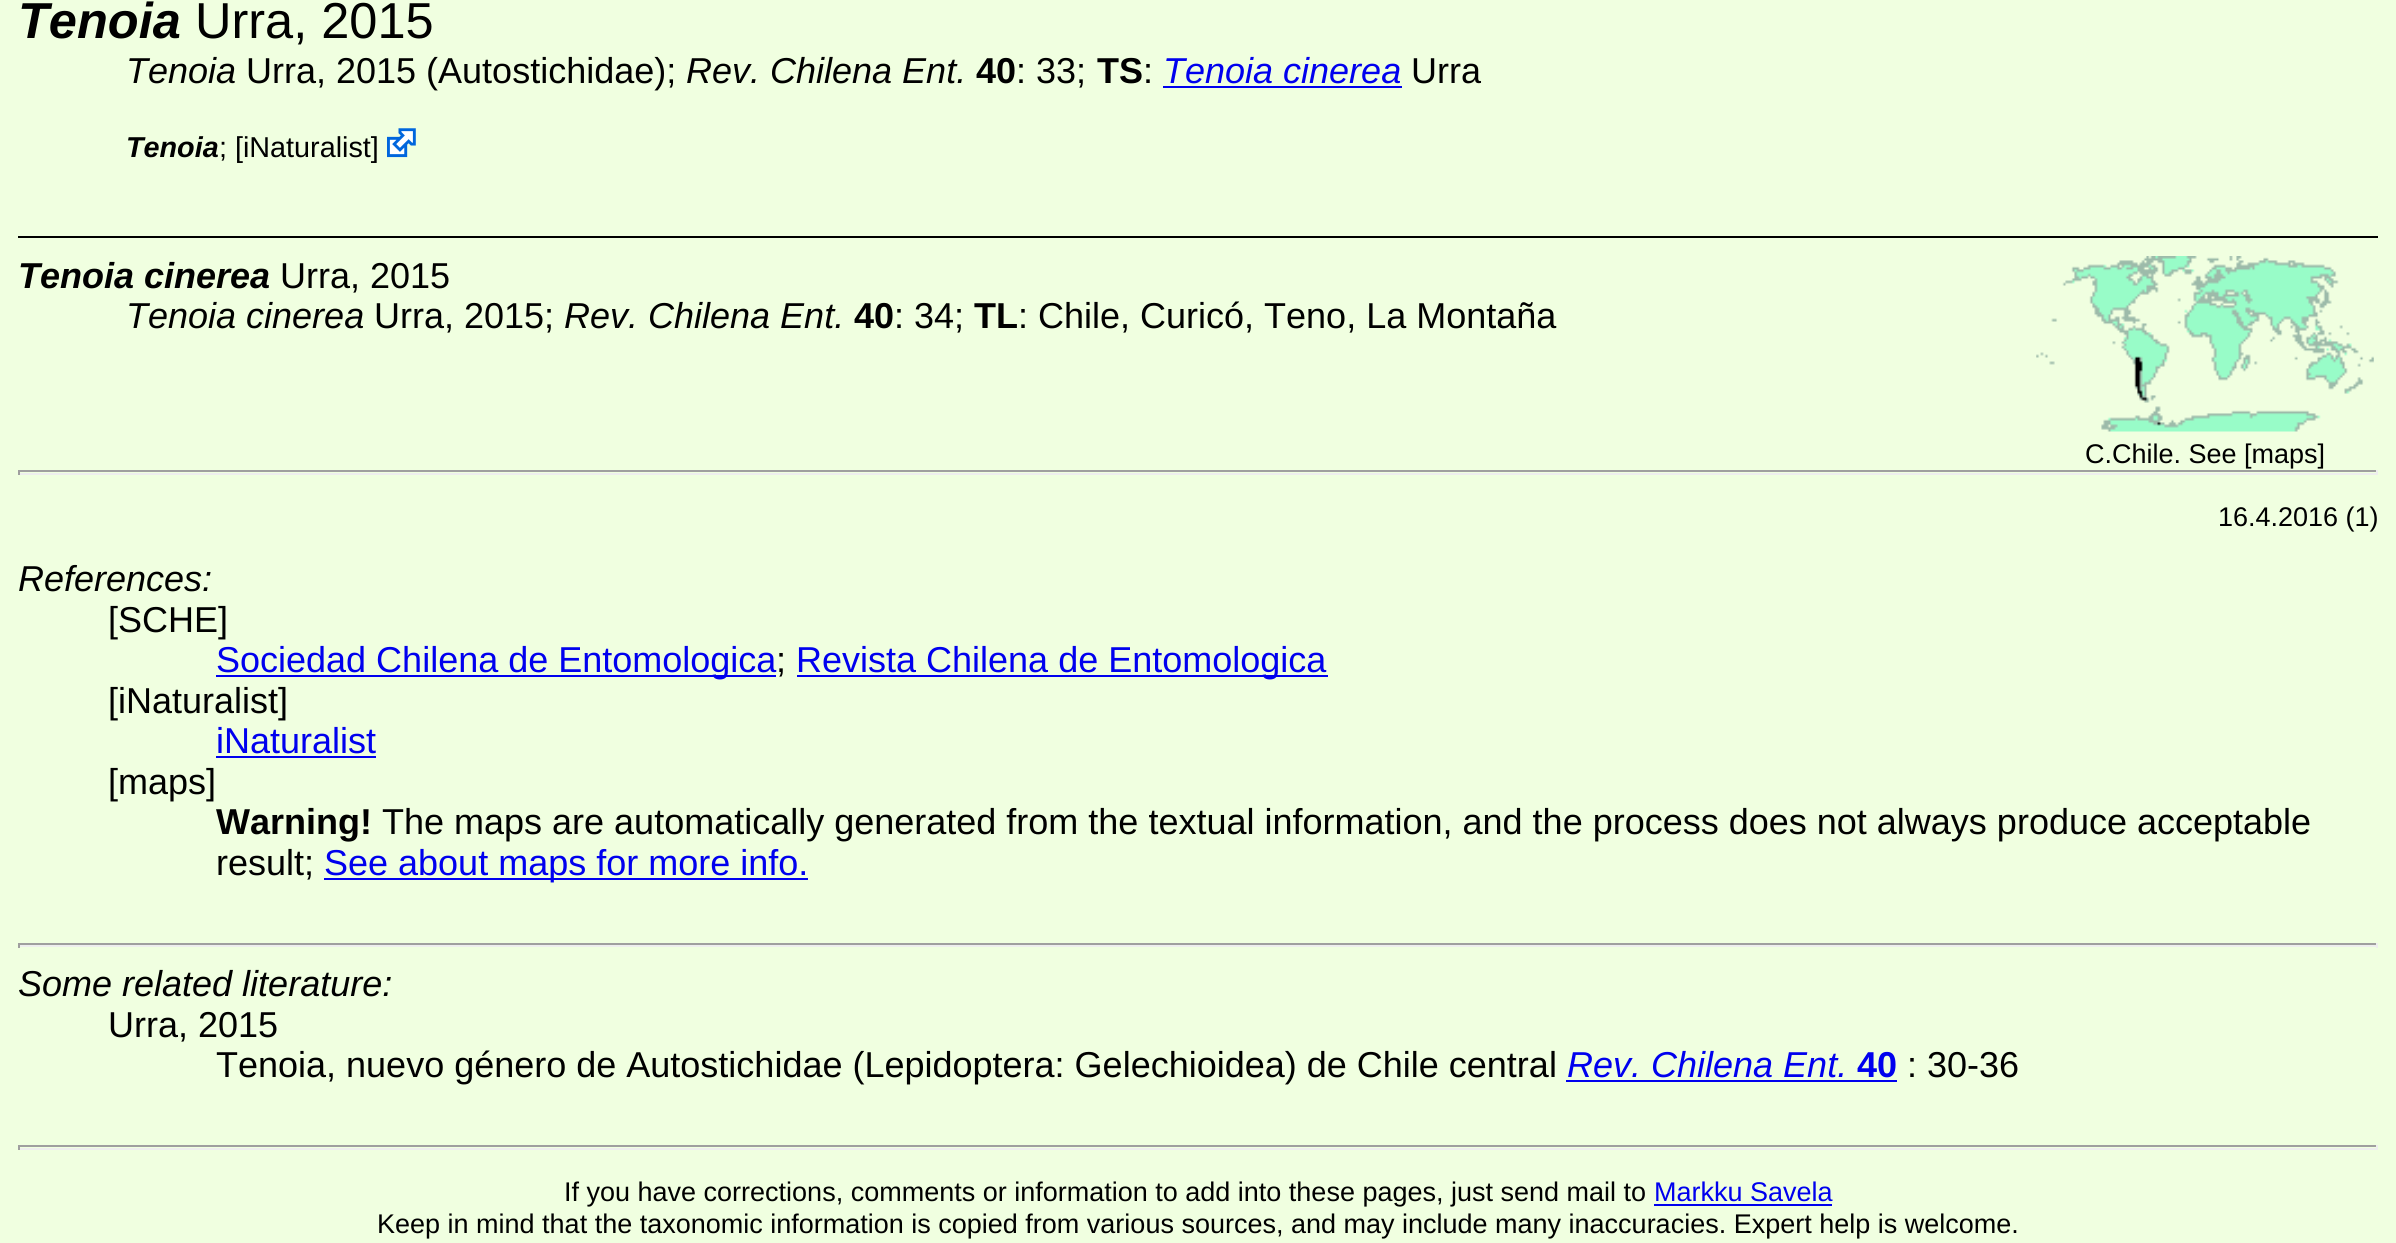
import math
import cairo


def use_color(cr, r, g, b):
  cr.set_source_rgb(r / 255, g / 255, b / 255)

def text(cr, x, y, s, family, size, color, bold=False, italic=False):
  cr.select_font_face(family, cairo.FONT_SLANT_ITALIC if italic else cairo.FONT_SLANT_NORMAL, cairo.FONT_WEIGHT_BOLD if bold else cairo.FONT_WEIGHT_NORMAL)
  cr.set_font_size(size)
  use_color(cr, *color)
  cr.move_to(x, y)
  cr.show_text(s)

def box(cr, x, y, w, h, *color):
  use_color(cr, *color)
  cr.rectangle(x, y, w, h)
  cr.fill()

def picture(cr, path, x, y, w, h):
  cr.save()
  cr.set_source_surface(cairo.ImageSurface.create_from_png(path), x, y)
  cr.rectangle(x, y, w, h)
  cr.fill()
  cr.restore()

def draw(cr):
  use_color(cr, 240, 255, 224)
  cr.paint()
  box(cr, 1163, 86, 239, 2, 0, 0, 238)
  picture(cr, "img_01.png", 387, 128, 29, 30)
  box(cr, 18, 236, 2360, 2, 0, 0, 0)
  picture(cr, "img_02.png", 2036, 256, 338, 176)
  box(cr, 18, 470, 2360, 2, 159, 159, 159)
  box(cr, 2376, 470, 2, 5, 238, 238, 238)
  box(cr, 18, 473, 2360, 2, 238, 238, 238)
  box(cr, 18, 470, 2, 5, 159, 159, 159)
  box(cr, 216, 675, 560, 2, 0, 0, 238)
  box(cr, 797, 675, 531, 2, 0, 0, 238)
  box(cr, 216, 756, 160, 2, 0, 0, 238)
  box(cr, 324, 878, 484, 2, 0, 0, 238)
  box(cr, 18, 943, 2360, 2, 159, 159, 159)
  box(cr, 2376, 943, 2, 5, 238, 238, 238)
  box(cr, 18, 945, 2360, 2, 238, 238, 238)
  box(cr, 18, 943, 2, 5, 159, 159, 159)
  box(cr, 1566, 1080, 331, 2, 0, 0, 238)
  box(cr, 18, 1145, 2360, 2, 159, 159, 159)
  box(cr, 2376, 1145, 2, 5, 238, 238, 238)
  box(cr, 18, 1148, 2360, 2, 238, 238, 238)
  box(cr, 18, 1145, 2, 5, 159, 159, 159)
  box(cr, 1654, 1204, 178, 2, 0, 0, 238)
  text(cr, 18, 38, "Tenoia", "Liberation Sans", 50.5, (0, 0, 0), bold=True, italic=True)
  text(cr, 195, 38, "Urra, 2015", "Liberation Sans", 50.5, (0, 0, 0))
  text(cr, 126, 83, "Tenoia", "Liberation Sans", 36, (0, 0, 0), italic=True)
  text(cr, 246, 83, "Urra, 2015 (Autostichidae);", "Liberation Sans", 36, (0, 0, 0))
  text(cr, 686, 83, "Rev. Chilena Ent.", "Liberation Sans", 36, (0, 0, 0), italic=True)
  text(cr, 976, 83, "40", "Liberation Sans", 36, (0, 0, 0), bold=True)
  text(cr, 1016, 83, ": 33;", "Liberation Sans", 36, (0, 0, 0))
  text(cr, 1097, 83, "TS", "Liberation Sans", 36, (0, 0, 0), bold=True)
  text(cr, 1143, 83, ":", "Liberation Sans", 36, (0, 0, 0))
  text(cr, 1163, 83, "Tenoia cinerea", "Liberation Sans", 36, (0, 0, 238), italic=True)
  text(cr, 1411, 83, "Urra", "Liberation Sans", 36, (0, 0, 0))
  text(cr, 126, 157, "Tenoia", "Liberation Sans", 28.75, (0, 0, 0), bold=True, italic=True)
  text(cr, 219, 157, "; [iNaturalist]", "Liberation Sans", 28.75, (0, 0, 0))
  text(cr, 18, 288, "Tenoia cinerea", "Liberation Sans", 36, (0, 0, 0), bold=True, italic=True)
  text(cr, 280, 288, "Urra, 2015", "Liberation Sans", 36, (0, 0, 0))
  text(cr, 126, 328, "Tenoia cinerea", "Liberation Sans", 36, (0, 0, 0), italic=True)
  text(cr, 374, 328, "Urra, 2015;", "Liberation Sans", 36, (0, 0, 0))
  text(cr, 564, 328, "Rev. Chilena Ent.", "Liberation Sans", 36, (0, 0, 0), italic=True)
  text(cr, 854, 328, "40", "Liberation Sans", 36, (0, 0, 0), bold=True)
  text(cr, 894, 328, ": 34;", "Liberation Sans", 36, (0, 0, 0))
  text(cr, 974, 328, "TL", "Liberation Sans", 36, (0, 0, 0), bold=True)
  text(cr, 1018, 328, ": Chile, Curicó, Teno, La Montaña", "Liberation Sans", 36, (0, 0, 0))
  text(cr, 2085, 463, "C.Chile. See [maps]", "Liberation Sans", 27, (0, 0, 0))
  text(cr, 2218, 526, "16.4.2016 (1)", "Liberation Sans", 27, (0, 0, 0))
  text(cr, 18, 591, "References:", "Liberation Sans", 36, (0, 0, 0), italic=True)
  text(cr, 108, 632, "[SCHE]", "Liberation Sans", 36, (0, 0, 0))
  text(cr, 216, 672, "Sociedad Chilena de Entomologica", "Liberation Sans", 36, (0, 0, 238))
  text(cr, 776, 672, ";", "Liberation Sans", 36, (0, 0, 0))
  text(cr, 796, 672, "Revista Chilena de Entomologica", "Liberation Sans", 36, (0, 0, 238))
  text(cr, 108, 713, "[iNaturalist]", "Liberation Sans", 36, (0, 0, 0))
  text(cr, 216, 753, "iNaturalist", "Liberation Sans", 36, (0, 0, 238))
  text(cr, 108, 794, "[maps]", "Liberation Sans", 36, (0, 0, 0))
  text(cr, 216, 834, "Warning!", "Liberation Sans", 36, (0, 0, 0), bold=True)
  text(cr, 382, 834, "The maps are automatically generated from the textual information, and the process does not always produce acceptable", "Liberation Sans", 36, (0, 0, 0))
  text(cr, 216, 875, "result;", "Liberation Sans", 36, (0, 0, 0))
  text(cr, 324, 875, "See about maps for more info.", "Liberation Sans", 36, (0, 0, 238))
  text(cr, 18, 996, "Some related literature:", "Liberation Sans", 36, (0, 0, 0), italic=True)
  text(cr, 108, 1037, "Urra, 2015", "Liberation Sans", 36, (0, 0, 0))
  text(cr, 216, 1077, "Tenoia, nuevo género de Autostichidae (Lepidoptera: Gelechioidea) de Chile central", "Liberation Sans", 36, (0, 0, 0))
  text(cr, 1567, 1077, "Rev. Chilena Ent.", "Liberation Sans", 36, (0, 0, 238), italic=True)
  text(cr, 1857, 1077, "40", "Liberation Sans", 36, (0, 0, 238), bold=True)
  text(cr, 1907, 1077, ": 30-36", "Liberation Sans", 36, (0, 0, 0))
  text(cr, 564, 1201, "If you have corrections, comments or information to add into these pages, just send mail to", "Liberation Sans", 27, (0, 0, 0))
  text(cr, 1654, 1201, "Markku Savela", "Liberation Sans", 27, (0, 0, 238))
  text(cr, 377, 1233, "Keep in mind that the taxonomic information is copied from various sources, and may include many inaccuracies. Expert help is welcome.", "Liberation Sans", 27, (0, 0, 0))


surface = cairo.ImageSurface(cairo.FORMAT_RGB24, 2396, 1243)
cr = cairo.Context(surface)
options = cairo.FontOptions()
options.set_hint_metrics(cairo.HINT_METRICS_OFF)
options.set_hint_style(cairo.HINT_STYLE_NONE)
cr.set_font_options(options)
cr.set_miter_limit(4)
draw(cr)
surface.write_to_png("out.png")
